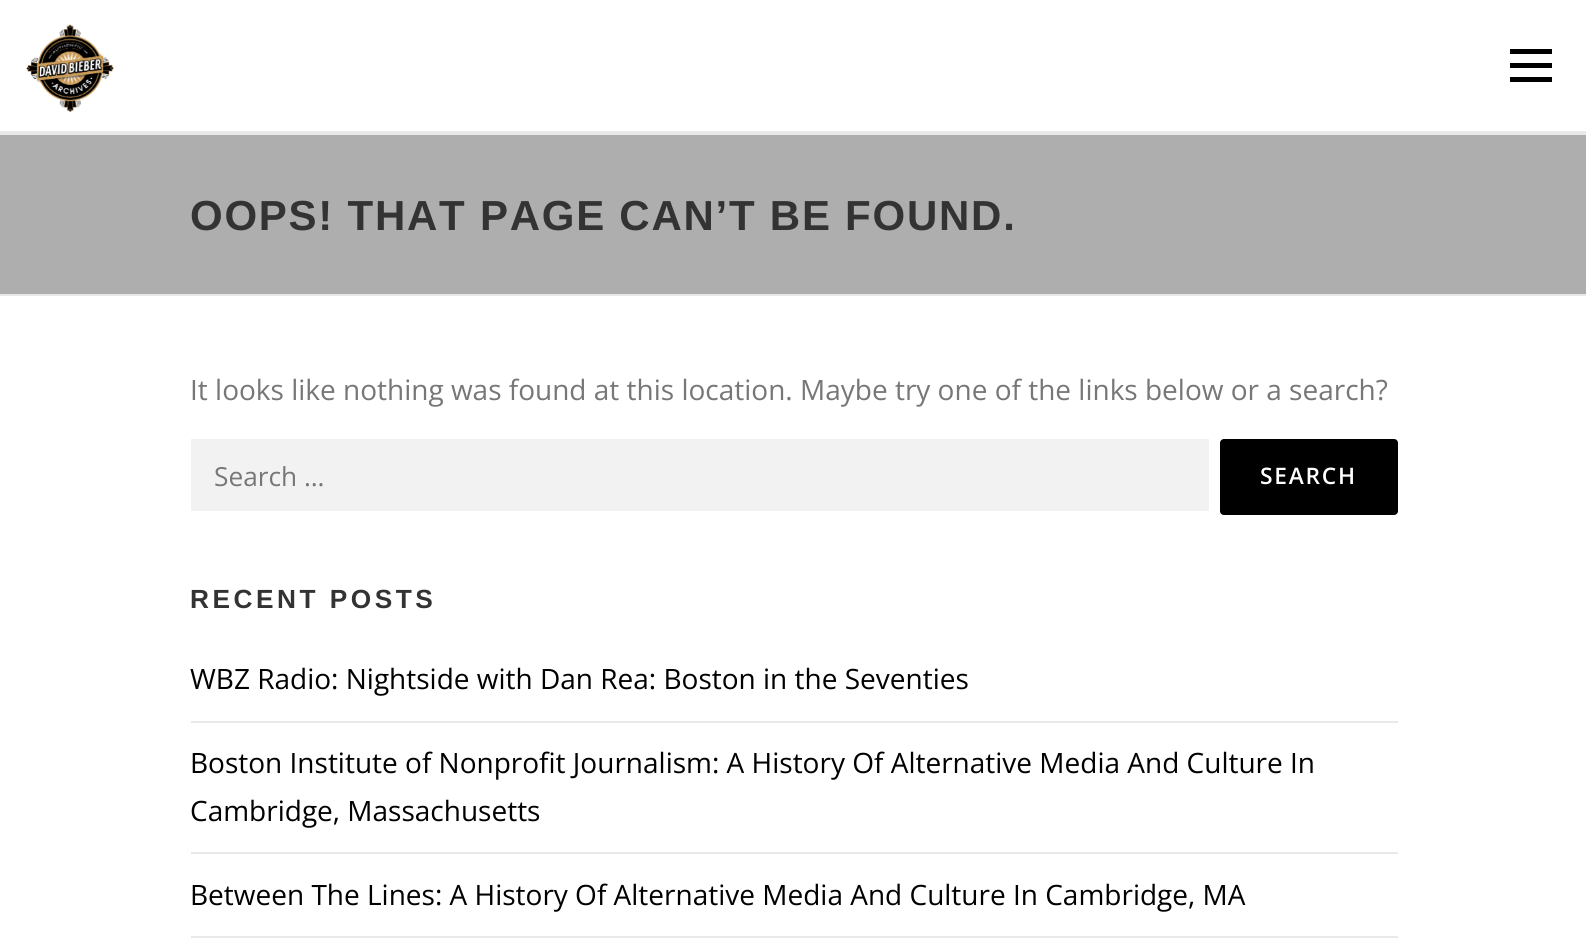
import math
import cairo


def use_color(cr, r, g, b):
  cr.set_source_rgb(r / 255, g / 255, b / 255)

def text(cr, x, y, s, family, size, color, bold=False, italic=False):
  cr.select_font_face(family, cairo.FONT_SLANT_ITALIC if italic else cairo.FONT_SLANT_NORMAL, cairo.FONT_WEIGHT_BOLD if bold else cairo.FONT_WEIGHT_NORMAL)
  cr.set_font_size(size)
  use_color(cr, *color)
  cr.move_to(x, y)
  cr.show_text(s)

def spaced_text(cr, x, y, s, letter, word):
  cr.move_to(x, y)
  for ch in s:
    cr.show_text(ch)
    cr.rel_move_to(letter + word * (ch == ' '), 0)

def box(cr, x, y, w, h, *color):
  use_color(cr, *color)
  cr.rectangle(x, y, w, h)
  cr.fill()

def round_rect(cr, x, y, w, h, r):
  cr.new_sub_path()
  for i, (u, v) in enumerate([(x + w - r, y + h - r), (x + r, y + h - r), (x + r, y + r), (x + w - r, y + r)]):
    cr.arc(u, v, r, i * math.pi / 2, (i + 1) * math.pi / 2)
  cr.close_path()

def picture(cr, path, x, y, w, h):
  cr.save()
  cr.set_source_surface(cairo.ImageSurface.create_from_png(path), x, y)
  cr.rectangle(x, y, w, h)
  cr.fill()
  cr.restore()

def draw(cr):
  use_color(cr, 255, 255, 255)
  cr.paint()
  picture(cr, "img_01.png", 26, 24, 88, 88)
  box(cr, 1510, 63, 42, 5, 0, 0, 0)
  box(cr, 1510, 49, 42, 5, 0, 0, 0)
  box(cr, 1510, 77, 42, 5, 0, 0, 0)
  box(cr, 0, 131, 1586, 4, 233, 233, 233)
  box(cr, 0, 294, 1586, 2, 233, 233, 233)
  box(cr, 0, 135, 1586, 159, 174, 174, 174)
  box(cr, 191, 439, 1018, 72, 242, 242, 242)
  use_color(cr, 0, 0, 0)
  round_rect(cr, 1220, 439, 178, 76, 4)
  cr.fill()
  cr.set_source_rgba(0, 0, 0, 0.1)
  cr.new_path()
  cr.move_to(1220, 509)
  cr.line_to(1220, 511)
  cr.curve_to(1220, 513, 1222, 515, 1224, 515)
  cr.line_to(1394, 515)
  cr.curve_to(1396, 515, 1398, 513, 1398, 511)
  cr.line_to(1398, 509)
  cr.curve_to(1398, 511, 1397, 513, 1395, 513)
  cr.line_to(1223, 513)
  cr.curve_to(1221, 513, 1220, 511, 1220, 509)
  cr.close_path()
  cr.fill()
  box(cr, 191, 721, 1207, 2, 233, 233, 233)
  box(cr, 191, 852, 1207, 2, 233, 233, 233)
  box(cr, 191, 936, 1207, 2, 233, 233, 233)
  cr.select_font_face("Liberation Sans", cairo.FONT_SLANT_NORMAL, cairo.FONT_WEIGHT_BOLD)
  cr.set_font_size(42)
  use_color(cr, 51, 51, 51)
  spaced_text(cr, 190, 230, "OOPS! THAT PAGE CAN’T BE FOUND.", 1.75, 0)
  text(cr, 190, 400, "It looks like nothing was found at this location. Maybe try one of the links below or a search?", "Open Sans", 28, (119, 119, 119))
  text(cr, 214, 486, "Search …", "Open Sans", 26.25, (119, 119, 119))
  cr.select_font_face("Open Sans SemiBold")
  cr.set_font_size(22.75)
  use_color(cr, 255, 255, 255)
  spaced_text(cr, 1260, 484, "SEARCH", 1.75, 0)
  cr.select_font_face("Liberation Sans", cairo.FONT_SLANT_NORMAL, cairo.FONT_WEIGHT_BOLD)
  cr.set_font_size(26.25)
  use_color(cr, 51, 51, 51)
  spaced_text(cr, 190, 608, "RECENT POSTS", 3.5, 0)
  text(cr, 190, 689, "WBZ Radio: Nightside with Dan Rea: Boston in the Seventies", "Open Sans", 28, (0, 0, 0))
  text(cr, 190, 773, "Boston Institute of Nonprofit Journalism: A History Of Alternative Media And Culture In", "Open Sans", 28, (0, 0, 0))
  text(cr, 190, 821, "Cambridge, Massachusetts", "Open Sans", 28, (0, 0, 0))
  text(cr, 190, 905, "Between The Lines: A History Of Alternative Media And Culture In Cambridge, MA", "Open Sans", 28, (0, 0, 0))


surface = cairo.ImageSurface(cairo.FORMAT_RGB24, 1586, 951)
cr = cairo.Context(surface)
options = cairo.FontOptions()
options.set_hint_metrics(cairo.HINT_METRICS_OFF)
options.set_hint_style(cairo.HINT_STYLE_NONE)
cr.set_font_options(options)
cr.set_miter_limit(4)
draw(cr)
surface.write_to_png("out.png")
